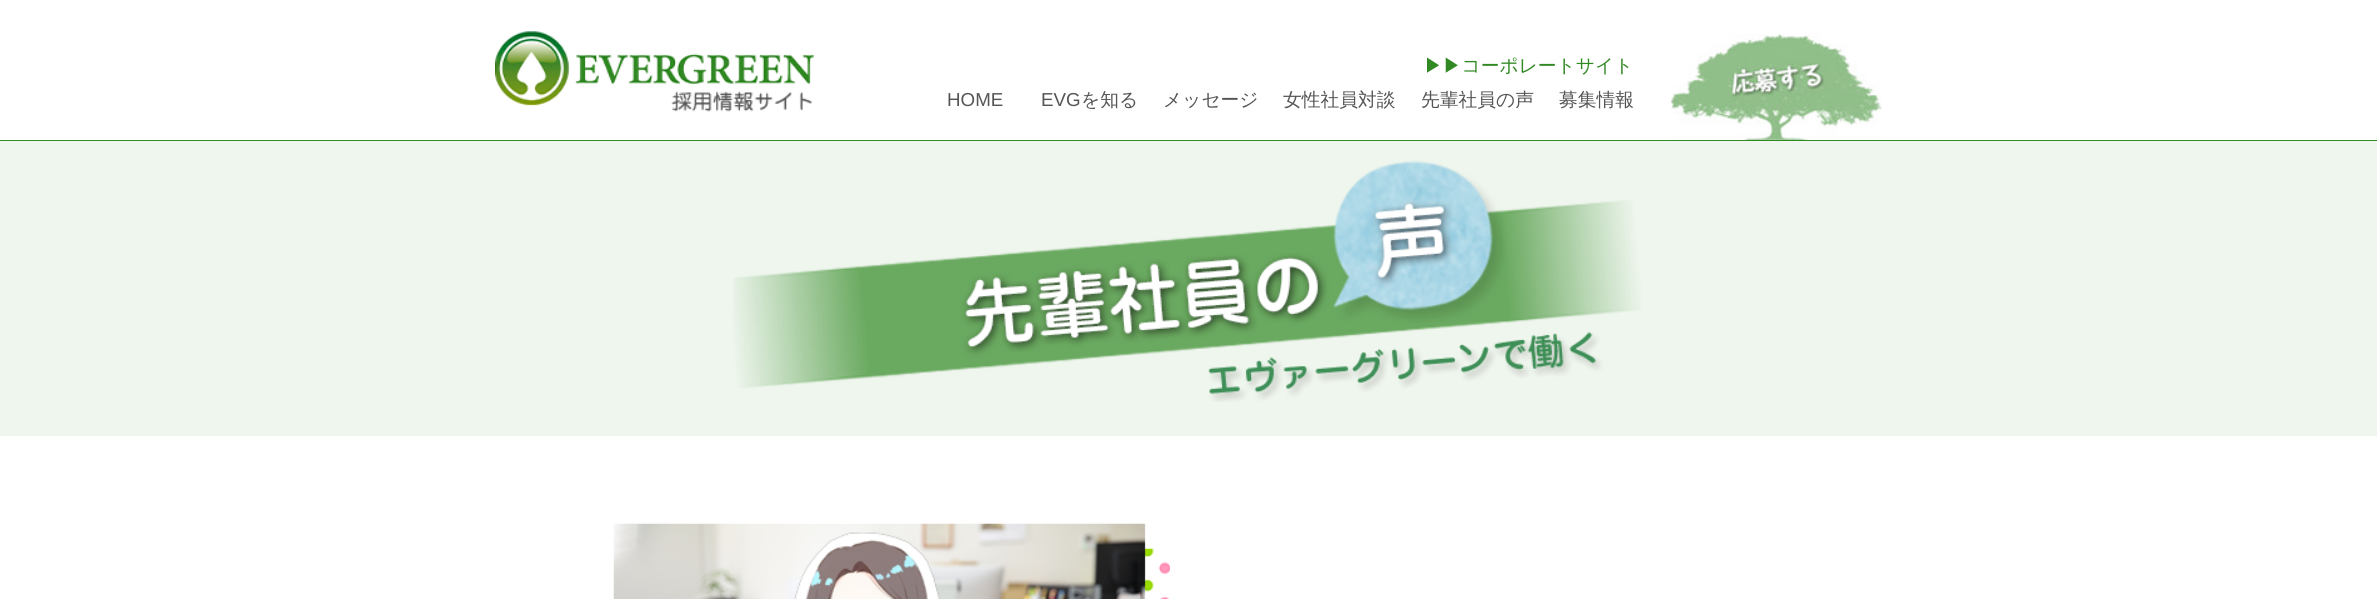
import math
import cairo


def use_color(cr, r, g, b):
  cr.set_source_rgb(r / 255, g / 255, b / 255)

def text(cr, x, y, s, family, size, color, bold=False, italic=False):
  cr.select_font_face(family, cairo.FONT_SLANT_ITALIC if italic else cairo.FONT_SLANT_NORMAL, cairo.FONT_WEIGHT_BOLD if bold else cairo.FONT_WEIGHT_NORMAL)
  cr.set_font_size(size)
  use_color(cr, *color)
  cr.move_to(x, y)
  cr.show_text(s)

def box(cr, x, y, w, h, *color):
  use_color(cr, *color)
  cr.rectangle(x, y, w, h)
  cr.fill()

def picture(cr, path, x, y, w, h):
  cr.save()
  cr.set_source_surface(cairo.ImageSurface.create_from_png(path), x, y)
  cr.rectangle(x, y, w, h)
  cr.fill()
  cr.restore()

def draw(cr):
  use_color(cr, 255, 255, 255)
  cr.paint()
  box(cr, 0, 140, 2377, 1, 49, 137, 35)
  picture(cr, "img_01.png", 495, 31, 319, 81)
  picture(cr, "img_02.png", 1671, 33, 211, 107)
  box(cr, 0, 141, 2377, 295, 239, 246, 238)
  picture(cr, "img_03.png", 733, 160, 908, 242)
  picture(cr, "img_04.png", 613, 523, 557, 76)
  text(cr, 1424, 72, "▶▶コーポレートサイト", "WenQuanYi Zen Hei Medium", 18.75, (49, 137, 35))
  text(cr, 947, 106, "HOME", "Liberation Sans", 18.75, (85, 85, 85))
  text(cr, 1041, 106, "EVG", "Liberation Sans", 18.75, (85, 85, 85))
  text(cr, 1081, 106, "を知る", "WenQuanYi Zen Hei Medium", 18.75, (85, 85, 85))
  text(cr, 1163, 106, "メッセージ", "WenQuanYi Zen Hei Medium", 18.75, (85, 85, 85))
  text(cr, 1283, 106, "女性社員対談", "WenQuanYi Zen Hei Medium", 18.75, (85, 85, 85))
  text(cr, 1421, 106, "先輩社員の声", "WenQuanYi Zen Hei Medium", 18.75, (85, 85, 85))
  text(cr, 1559, 106, "募集情報", "WenQuanYi Zen Hei Medium", 18.75, (85, 85, 85))


surface = cairo.ImageSurface(cairo.FORMAT_RGB24, 2377, 599)
cr = cairo.Context(surface)
options = cairo.FontOptions()
options.set_hint_metrics(cairo.HINT_METRICS_OFF)
options.set_hint_style(cairo.HINT_STYLE_NONE)
cr.set_font_options(options)
cr.set_miter_limit(4)
draw(cr)
surface.write_to_png("out.png")
